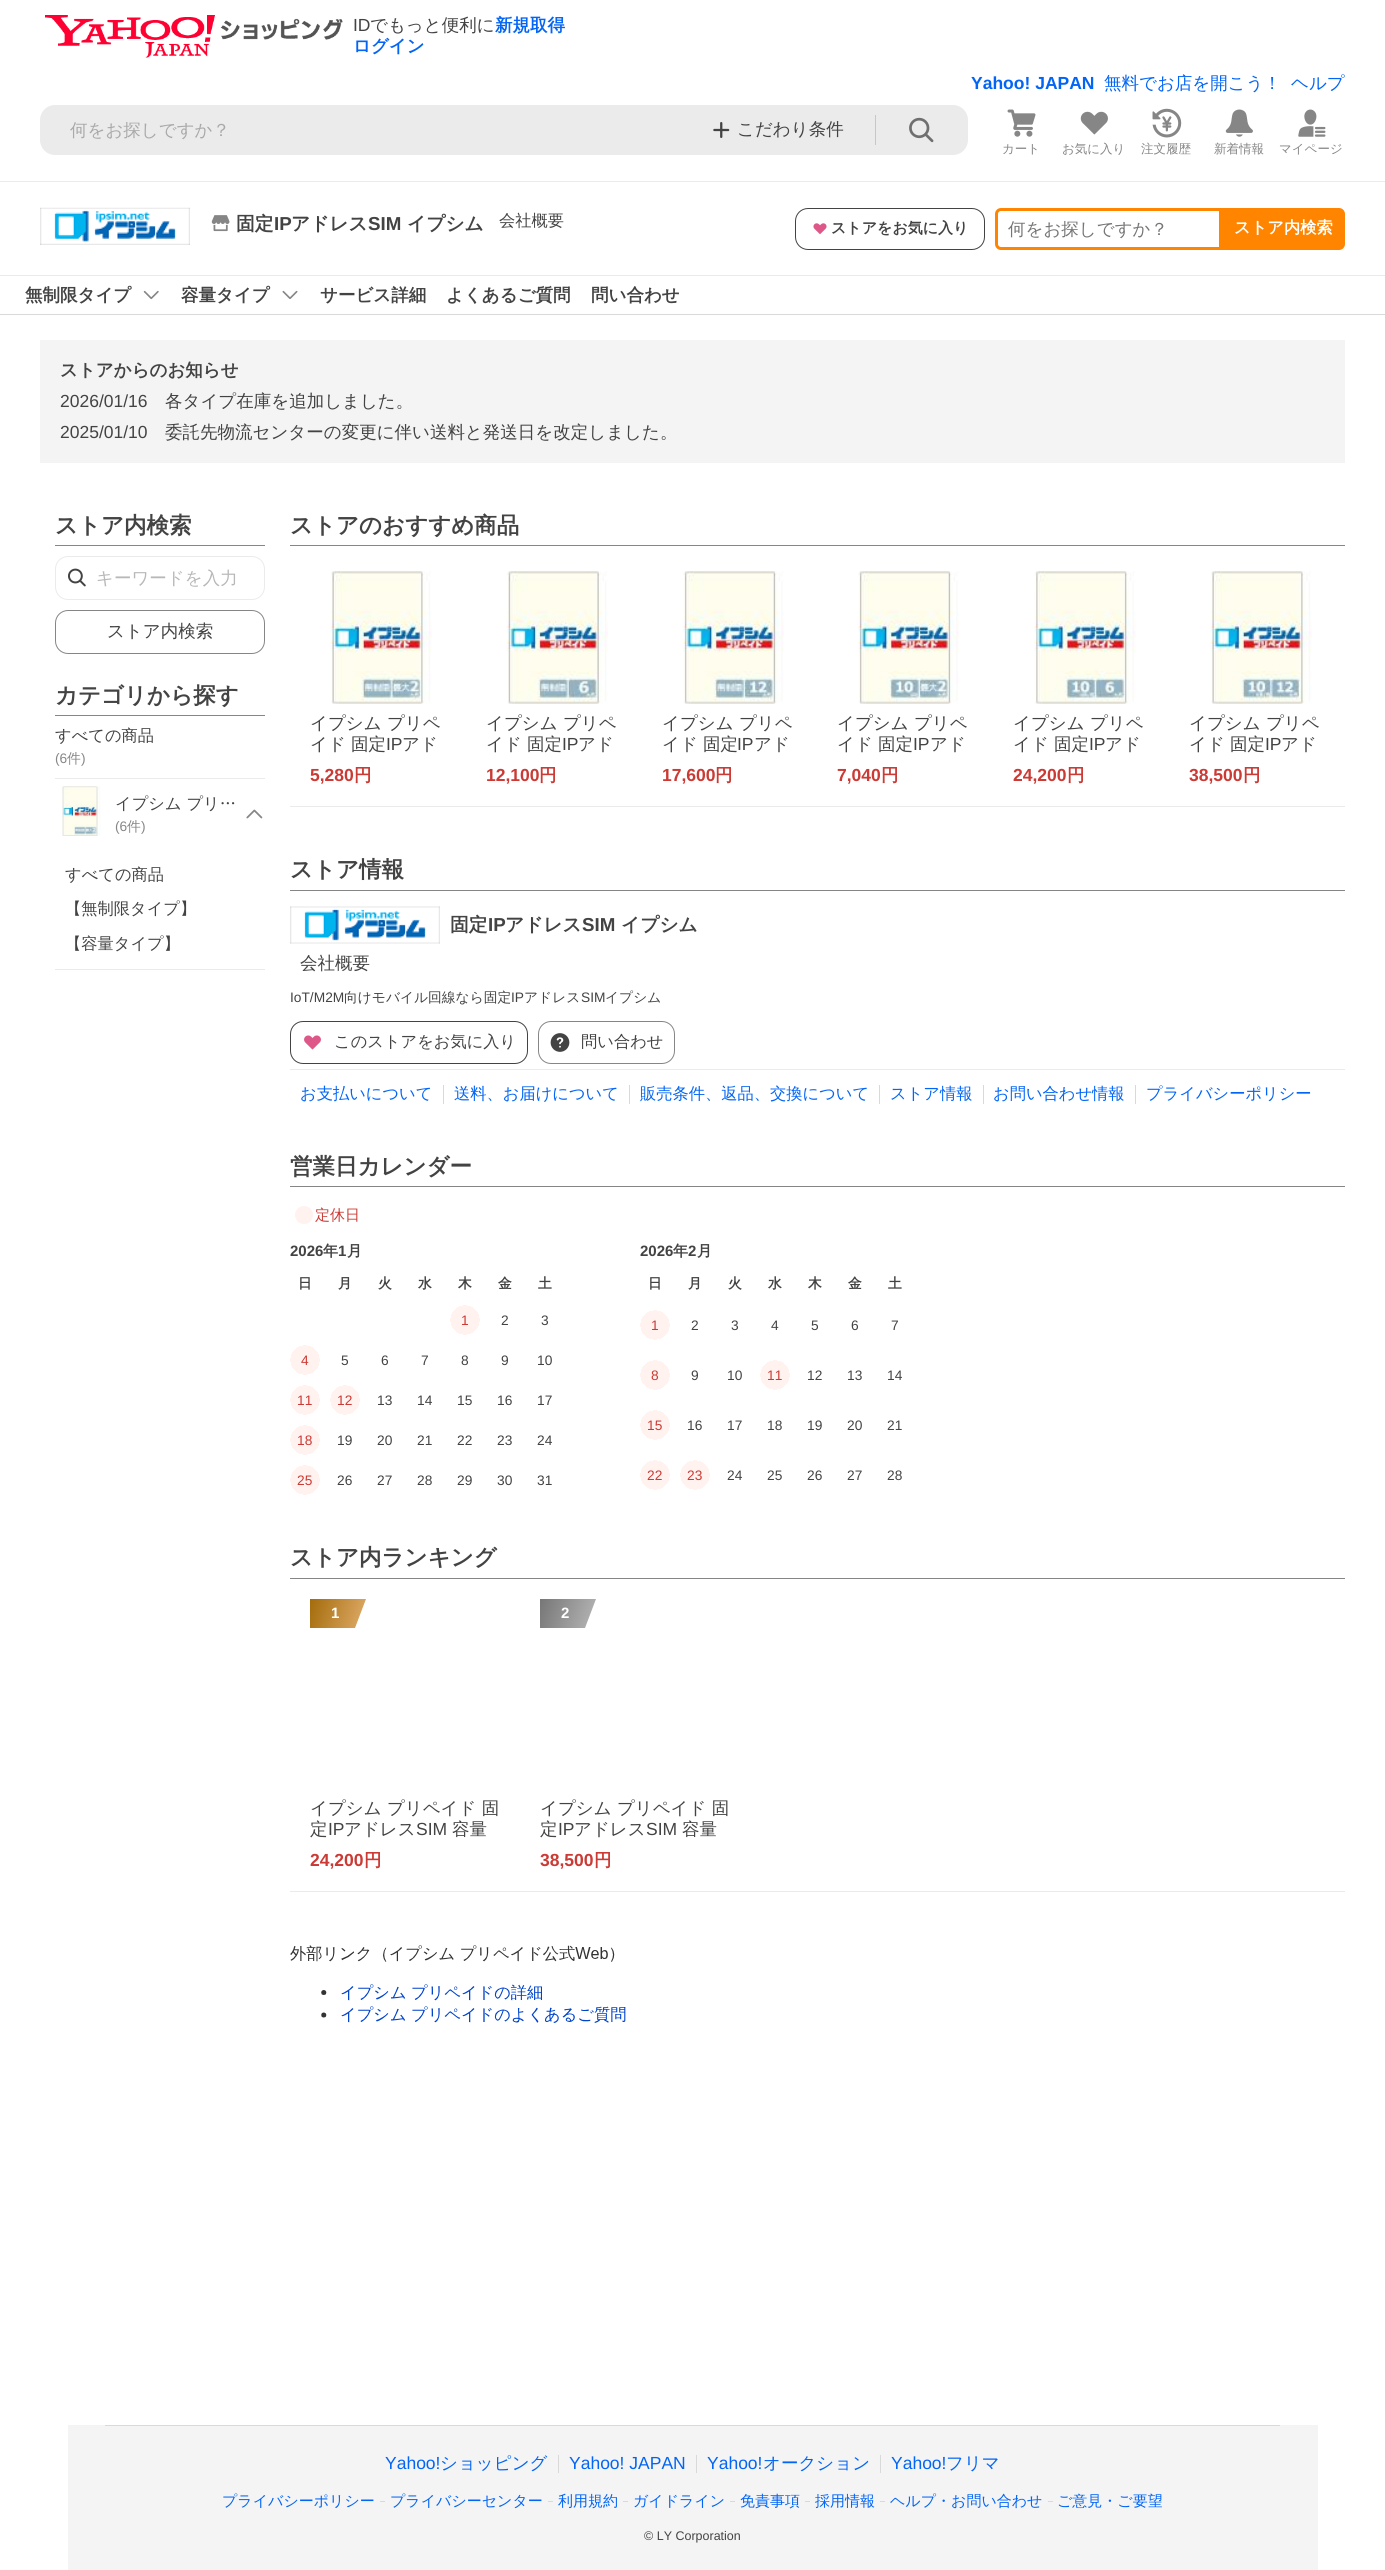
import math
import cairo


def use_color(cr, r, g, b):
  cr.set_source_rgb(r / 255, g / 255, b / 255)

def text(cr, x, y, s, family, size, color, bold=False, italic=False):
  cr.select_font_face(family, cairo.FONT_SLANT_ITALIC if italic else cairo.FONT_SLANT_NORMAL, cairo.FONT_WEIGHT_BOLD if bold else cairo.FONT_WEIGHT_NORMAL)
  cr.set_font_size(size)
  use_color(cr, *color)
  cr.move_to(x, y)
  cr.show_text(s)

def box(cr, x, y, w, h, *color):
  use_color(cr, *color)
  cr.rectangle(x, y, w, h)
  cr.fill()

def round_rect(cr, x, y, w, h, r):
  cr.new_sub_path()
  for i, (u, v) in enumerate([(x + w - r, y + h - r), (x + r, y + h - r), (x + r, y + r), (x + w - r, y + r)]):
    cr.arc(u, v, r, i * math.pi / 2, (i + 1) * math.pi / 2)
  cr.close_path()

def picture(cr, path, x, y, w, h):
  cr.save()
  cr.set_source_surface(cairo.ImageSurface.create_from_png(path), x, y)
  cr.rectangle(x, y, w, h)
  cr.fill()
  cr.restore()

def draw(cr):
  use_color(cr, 255, 255, 255)
  cr.paint()
  box(cr, 0, 181, 1385, 1, 235, 235, 235)
  picture(cr, "img_01.png", 45, 15, 298, 43)
  round_rect(cr, 40, 105, 928, 50, 15)
  cr.fill()
  picture(cr, "img_02.png", 713, 122, 17, 16)
  box(cr, 875, 115, 1, 30, 200, 200, 200)
  picture(cr, "img_03.png", 909, 117, 25, 26)
  picture(cr, "img_04.png", 1007, 109, 29, 28)
  picture(cr, "img_05.png", 1080, 111, 28, 24)
  picture(cr, "img_06.png", 1152, 108, 30, 30)
  picture(cr, "img_07.png", 1225, 109, 28, 28)
  picture(cr, "img_08.png", 1298, 109, 28, 28)
  picture(cr, "img_09.png", 40, 207, 150, 38)
  picture(cr, "img_10.png", 211, 215, 19, 17)
  round_rect(cr, 795.5, 208.5, 189, 41, 12.5)
  use_color(cr, 67, 67, 67)
  cr.set_line_width(1)
  cr.stroke()
  picture(cr, "img_11.png", 813, 223, 14, 12)
  round_rect(cr, 996.5, 209.5, 347, 39, 4.5)
  use_color(cr, 255, 132, 0)
  cr.set_line_width(3)
  cr.stroke()
  cr.new_path()
  cr.move_to(1219, 210)
  cr.line_to(1339, 210)
  cr.curve_to(1341, 210, 1343, 212, 1343, 214)
  cr.line_to(1343, 244)
  cr.curve_to(1343, 246, 1341, 248, 1339, 248)
  cr.line_to(1219, 248)
  cr.close_path()
  cr.fill()
  box(cr, 0, 275, 1385, 1, 235, 235, 235)
  box(cr, 0, 314, 1385, 1, 217, 217, 217)
  picture(cr, "img_12.png", 143, 290, 16, 10)
  picture(cr, "img_13.png", 282, 290, 16, 9)
  box(cr, 40, 340, 1305, 123, 244, 244, 244)
  box(cr, 55, 545, 210, 1, 134, 134, 134)
  round_rect(cr, 55.5, 556.5, 209, 43, 12.5)
  use_color(cr, 235, 235, 235)
  cr.set_line_width(1)
  cr.stroke()
  picture(cr, "img_14.png", 68, 568, 18, 19)
  round_rect(cr, 55.5, 610.5, 209, 43, 12.5)
  use_color(cr, 134, 134, 134)
  cr.stroke()
  box(cr, 55, 715, 210, 1, 134, 134, 134)
  box(cr, 55, 778, 210, 1, 235, 235, 235)
  box(cr, 55, 969, 210, 1, 235, 235, 235)
  picture(cr, "img_15.png", 62, 786, 39, 50)
  picture(cr, "img_16.png", 246, 809, 17, 10)
  box(cr, 290, 545, 1055, 1, 134, 134, 134)
  box(cr, 290, 806, 1055, 1, 235, 235, 235)
  picture(cr, "img_17.png", 330, 571, 102, 133)
  picture(cr, "img_18.png", 506, 571, 102, 133)
  picture(cr, "img_19.png", 682, 571, 102, 133)
  picture(cr, "img_20.png", 857, 571, 102, 133)
  picture(cr, "img_21.png", 1034, 571, 102, 133)
  picture(cr, "img_22.png", 1210, 571, 102, 133)
  box(cr, 290, 890, 1055, 1, 134, 134, 134)
  picture(cr, "img_23.png", 290, 906, 150, 38)
  round_rect(cr, 290.5, 1021.5, 237, 42, 12.5)
  use_color(cr, 67, 67, 67)
  cr.stroke()
  picture(cr, "img_24.png", 304, 1035, 17, 15)
  round_rect(cr, 538.5, 1021.5, 136, 42, 12.5)
  use_color(cr, 134, 134, 134)
  cr.stroke()
  picture(cr, "img_25.png", 550, 1033, 20, 19)
  box(cr, 290, 1069, 1055, 1, 235, 235, 235)
  box(cr, 443, 1085, 1, 19, 217, 217, 217)
  box(cr, 629, 1085, 1, 19, 217, 217, 217)
  box(cr, 879, 1085, 1, 19, 217, 217, 217)
  box(cr, 983, 1085, 1, 19, 217, 217, 217)
  box(cr, 1135, 1085, 1, 19, 217, 217, 217)
  box(cr, 290, 1186, 1055, 1, 134, 134, 134)
  use_color(cr, 255, 242, 239)
  cr.arc(304, 1215, 9, 0, 2 * math.pi)
  cr.fill()
  gradient = cairo.RadialGradient(465, 1320, 0, 465, 1320, 21)
  gradient.add_color_stop_rgba(0.7, 1, 0.949, 0.937, 1)
  gradient.add_color_stop_rgba(0.7, 1, 1, 1, 1)
  cr.set_source(gradient)
  cr.rectangle(450, 1305, 30, 30)
  cr.fill()
  gradient = cairo.RadialGradient(305, 1360, 0, 305, 1360, 21)
  gradient.add_color_stop_rgba(0.7, 1, 0.949, 0.937, 1)
  gradient.add_color_stop_rgba(0.7, 1, 1, 1, 1)
  cr.set_source(gradient)
  cr.rectangle(290, 1345, 30, 30)
  cr.fill()
  gradient = cairo.RadialGradient(305, 1400, 0, 305, 1400, 21)
  gradient.add_color_stop_rgba(0.7, 1, 0.949, 0.937, 1)
  gradient.add_color_stop_rgba(0.7, 1, 1, 1, 1)
  cr.set_source(gradient)
  cr.rectangle(290, 1385, 30, 30)
  cr.fill()
  gradient = cairo.RadialGradient(345, 1400, 0, 345, 1400, 21)
  gradient.add_color_stop_rgba(0.7, 1, 0.949, 0.937, 1)
  gradient.add_color_stop_rgba(0.7, 1, 1, 1, 1)
  cr.set_source(gradient)
  cr.rectangle(330, 1385, 30, 30)
  cr.fill()
  gradient = cairo.RadialGradient(305, 1440, 0, 305, 1440, 21)
  gradient.add_color_stop_rgba(0.7, 1, 0.949, 0.937, 1)
  gradient.add_color_stop_rgba(0.7, 1, 1, 1, 1)
  cr.set_source(gradient)
  cr.rectangle(290, 1425, 30, 30)
  cr.fill()
  gradient = cairo.RadialGradient(305, 1480, 0, 305, 1480, 21)
  gradient.add_color_stop_rgba(0.7, 1, 0.949, 0.937, 1)
  gradient.add_color_stop_rgba(0.7, 1, 1, 1, 1)
  cr.set_source(gradient)
  cr.rectangle(290, 1465, 30, 30)
  cr.fill()
  gradient = cairo.RadialGradient(655, 1325, 0, 655, 1325, 21)
  gradient.add_color_stop_rgba(0.7, 1, 0.949, 0.937, 1)
  gradient.add_color_stop_rgba(0.7, 1, 1, 1, 1)
  cr.set_source(gradient)
  cr.rectangle(640, 1310, 30, 30)
  cr.fill()
  gradient = cairo.RadialGradient(655, 1375, 0, 655, 1375, 21)
  gradient.add_color_stop_rgba(0.7, 1, 0.949, 0.937, 1)
  gradient.add_color_stop_rgba(0.7, 1, 1, 1, 1)
  cr.set_source(gradient)
  cr.rectangle(640, 1360, 30, 30)
  cr.fill()
  gradient = cairo.RadialGradient(775, 1375, 0, 775, 1375, 21)
  gradient.add_color_stop_rgba(0.7, 1, 0.949, 0.937, 1)
  gradient.add_color_stop_rgba(0.7, 1, 1, 1, 1)
  cr.set_source(gradient)
  cr.rectangle(760, 1360, 30, 30)
  cr.fill()
  gradient = cairo.RadialGradient(655, 1425, 0, 655, 1425, 21)
  gradient.add_color_stop_rgba(0.7, 1, 0.949, 0.937, 1)
  gradient.add_color_stop_rgba(0.7, 1, 1, 1, 1)
  cr.set_source(gradient)
  cr.rectangle(640, 1410, 30, 30)
  cr.fill()
  gradient = cairo.RadialGradient(655, 1475, 0, 655, 1475, 21)
  gradient.add_color_stop_rgba(0.7, 1, 0.949, 0.937, 1)
  gradient.add_color_stop_rgba(0.7, 1, 1, 1, 1)
  cr.set_source(gradient)
  cr.rectangle(640, 1460, 30, 30)
  cr.fill()
  gradient = cairo.RadialGradient(695, 1475, 0, 695, 1475, 21)
  gradient.add_color_stop_rgba(0.7, 1, 0.949, 0.937, 1)
  gradient.add_color_stop_rgba(0.7, 1, 1, 1, 1)
  cr.set_source(gradient)
  cr.rectangle(680, 1460, 30, 30)
  cr.fill()
  box(cr, 290, 1578, 1055, 1, 134, 134, 134)
  box(cr, 290, 1891, 1055, 1, 235, 235, 235)
  gradient = cairo.LinearGradient(308, 1604, 368, 1623)
  gradient.add_color_stop_rgba(0, 0.639, 0.42, 0.039, 1)
  gradient.add_color_stop_rgba(1, 0.882, 0.678, 0.42, 1)
  cr.set_source(gradient)
  cr.new_path()
  cr.move_to(310, 1599)
  cr.line_to(310, 1628)
  cr.line_to(355, 1628)
  cr.line_to(366, 1599)
  cr.close_path()
  cr.fill()
  gradient = cairo.LinearGradient(538, 1604, 598, 1623)
  gradient.add_color_stop_rgba(0, 0.463, 0.463, 0.463, 1)
  gradient.add_color_stop_rgba(1, 0.718, 0.718, 0.718, 1)
  cr.set_source(gradient)
  cr.new_path()
  cr.move_to(540, 1599)
  cr.line_to(540, 1628)
  cr.line_to(585, 1628)
  cr.line_to(596, 1599)
  cr.close_path()
  cr.fill()
  picture(cr, "img_26.png", 290, 1945, 336, 78)
  box(cr, 68, 2425, 1250, 145, 244, 244, 244)
  box(cr, 105, 2425, 1175, 1, 217, 217, 217)
  box(cr, 558, 2455, 1, 18, 217, 217, 217)
  box(cr, 696, 2455, 1, 18, 217, 217, 217)
  box(cr, 880, 2455, 1, 18, 217, 217, 217)
  box(cr, 380, 2501, 5, 1, 217, 217, 217)
  box(cr, 548, 2501, 5, 1, 217, 217, 217)
  box(cr, 623, 2501, 5, 1, 217, 217, 217)
  box(cr, 730, 2501, 5, 1, 217, 217, 217)
  box(cr, 805, 2501, 5, 1, 217, 217, 217)
  box(cr, 880, 2501, 5, 1, 217, 217, 217)
  box(cr, 1048, 2501, 5, 1, 217, 217, 217)
  text(cr, 353, 31, "ID", "Liberation Sans", 17.5, (67, 67, 67))
  text(cr, 370, 31, "でもっと便利に", "WenQuanYi Zen Hei Medium", 17.5, (67, 67, 67))
  text(cr, 495, 31, "新規取得", "WenQuanYi Zen Hei", 17.5, (2, 101, 246), bold=True)
  text(cr, 353, 52, "ログイン", "WenQuanYi Zen Hei", 17.5, (2, 101, 246), bold=True)
  text(cr, 971, 89, "Yahoo! JAPAN", "Liberation Sans", 17.5, (2, 101, 246), bold=True)
  text(cr, 1104, 89, "無料でお店を開こう！", "WenQuanYi Zen Hei Medium", 17.5, (2, 101, 246))
  text(cr, 1291, 89, "ヘルプ", "WenQuanYi Zen Hei Medium", 17.5, (2, 101, 246))
  text(cr, 70, 136, "何をお探しですか？", "WenQuanYi Zen Hei Medium", 17.5, (169, 169, 169))
  text(cr, 737, 135, "こだわり条件", "WenQuanYi Zen Hei Medium", 17.5, (67, 67, 67))
  text(cr, 1002, 153, "カート", "WenQuanYi Zen Hei Medium", 12.5, (134, 134, 134))
  text(cr, 1062, 153, "お気に入り", "WenQuanYi Zen Hei Medium", 12.5, (134, 134, 134))
  text(cr, 1141, 153, "注文履歴", "WenQuanYi Zen Hei Medium", 12.5, (134, 134, 134))
  text(cr, 1214, 153, "新着情報", "WenQuanYi Zen Hei Medium", 12.5, (134, 134, 134))
  text(cr, 1279, 153, "マイページ", "WenQuanYi Zen Hei Medium", 12.5, (134, 134, 134))
  text(cr, 236, 230, "固定", "WenQuanYi Zen Hei", 18.75, (67, 67, 67), bold=True)
  text(cr, 274, 230, "IP", "Liberation Sans", 18.75, (67, 67, 67), bold=True)
  text(cr, 291, 230, "アドレス", "WenQuanYi Zen Hei", 18.75, (67, 67, 67), bold=True)
  text(cr, 368, 230, "SIM", "Liberation Sans", 18.75, (67, 67, 67), bold=True)
  text(cr, 407, 230, "イプシム", "WenQuanYi Zen Hei", 18.75, (67, 67, 67), bold=True)
  text(cr, 499, 226, "会社概要", "WenQuanYi Zen Hei Medium", 16.25, (67, 67, 67))
  text(cr, 831, 233, "ストアをお気に入り", "WenQuanYi Zen Hei", 15, (67, 67, 67), bold=True)
  text(cr, 1008, 235, "何をお探しですか？", "WenQuanYi Zen Hei Medium", 17.5, (117, 117, 117))
  text(cr, 1234, 233, "ストア内検索", "WenQuanYi Zen Hei", 16.25, (255, 255, 255), bold=True)
  text(cr, 25, 301, "無制限タイプ", "WenQuanYi Zen Hei", 17.5, (67, 67, 67), bold=True)
  text(cr, 181, 301, "容量タイプ", "WenQuanYi Zen Hei", 17.5, (67, 67, 67), bold=True)
  text(cr, 320, 301, "サービス詳細", "WenQuanYi Zen Hei", 17.5, (67, 67, 67), bold=True)
  text(cr, 446, 301, "よくあるご質問", "WenQuanYi Zen Hei", 17.5, (67, 67, 67), bold=True)
  text(cr, 591, 301, "問い合わせ", "WenQuanYi Zen Hei", 17.5, (67, 67, 67), bold=True)
  text(cr, 60, 376, "ストアからのお知らせ", "WenQuanYi Zen Hei", 17.5, (67, 67, 67), bold=True)
  text(cr, 60, 407, "2026/01/16", "Liberation Sans", 17.5, (67, 67, 67))
  text(cr, 165, 407, "各タイプ在庫を追加しました。", "WenQuanYi Zen Hei Medium", 17.5, (67, 67, 67))
  text(cr, 60, 438, "2025/01/10", "Liberation Sans", 17.5, (67, 67, 67))
  text(cr, 165, 438, "委託先物流センターの変更に伴い送料と発送日を改定しました。", "WenQuanYi Zen Hei Medium", 17.5, (67, 67, 67))
  text(cr, 55, 533, "ストア内検索", "WenQuanYi Zen Hei", 22.5, (67, 67, 67), bold=True)
  text(cr, 96, 584, "キーワードを入力", "WenQuanYi Zen Hei Medium", 17.5, (184, 184, 184))
  text(cr, 107, 637, "ストア内検索", "WenQuanYi Zen Hei Medium", 17.5, (67, 67, 67))
  text(cr, 55, 703, "カテゴリから探す", "WenQuanYi Zen Hei", 22.5, (67, 67, 67), bold=True)
  text(cr, 55, 741, "すべての商品", "WenQuanYi Zen Hei Medium", 16.25, (67, 67, 67))
  text(cr, 55, 763, "(6", "Liberation Sans", 13.75, (134, 134, 134))
  text(cr, 67, 763, "件", "WenQuanYi Zen Hei Medium", 13.75, (134, 134, 134))
  text(cr, 81, 763, ")", "Liberation Sans", 13.75, (134, 134, 134))
  text(cr, 115, 809, "イプシム プリ…", "WenQuanYi Zen Hei Medium", 16.25, (67, 67, 67))
  text(cr, 115, 831, "(6", "Liberation Sans", 13.75, (134, 134, 134))
  text(cr, 127, 831, "件", "WenQuanYi Zen Hei Medium", 13.75, (134, 134, 134))
  text(cr, 141, 831, ")", "Liberation Sans", 13.75, (134, 134, 134))
  text(cr, 65, 880, "すべての商品", "WenQuanYi Zen Hei Medium", 16.25, (67, 67, 67))
  text(cr, 65, 914, "【無制限タイプ】", "WenQuanYi Zen Hei Medium", 16.25, (67, 67, 67))
  text(cr, 65, 949, "【容量タイプ】", "WenQuanYi Zen Hei Medium", 16.25, (67, 67, 67))
  text(cr, 290, 533, "ストアのおすすめ商品", "WenQuanYi Zen Hei", 22.5, (67, 67, 67), bold=True)
  text(cr, 310, 729, "イプシム プリペ", "WenQuanYi Zen Hei Medium", 17.5, (67, 67, 67))
  text(cr, 310, 750, "イド 固定", "WenQuanYi Zen Hei Medium", 17.5, (67, 67, 67))
  text(cr, 386, 750, "IP", "Liberation Sans", 17.5, (67, 67, 67))
  text(cr, 402, 750, "アド", "WenQuanYi Zen Hei Medium", 17.5, (67, 67, 67))
  text(cr, 310, 781, "5,280", "Liberation Sans", 17.5, (203, 58, 52), bold=True)
  text(cr, 354, 781, "円", "WenQuanYi Zen Hei", 17.5, (203, 58, 52), bold=True)
  text(cr, 486, 729, "イプシム プリペ", "WenQuanYi Zen Hei Medium", 17.5, (67, 67, 67))
  text(cr, 486, 750, "イド 固定", "WenQuanYi Zen Hei Medium", 17.5, (67, 67, 67))
  text(cr, 562, 750, "IP", "Liberation Sans", 17.5, (67, 67, 67))
  text(cr, 578, 750, "アド", "WenQuanYi Zen Hei Medium", 17.5, (67, 67, 67))
  text(cr, 486, 781, "12,100", "Liberation Sans", 17.5, (203, 58, 52), bold=True)
  text(cr, 539, 781, "円", "WenQuanYi Zen Hei", 17.5, (203, 58, 52), bold=True)
  text(cr, 662, 729, "イプシム プリペ", "WenQuanYi Zen Hei Medium", 17.5, (67, 67, 67))
  text(cr, 662, 750, "イド 固定", "WenQuanYi Zen Hei Medium", 17.5, (67, 67, 67))
  text(cr, 737, 750, "IP", "Liberation Sans", 17.5, (67, 67, 67))
  text(cr, 754, 750, "アド", "WenQuanYi Zen Hei Medium", 17.5, (67, 67, 67))
  text(cr, 662, 781, "17,600", "Liberation Sans", 17.5, (203, 58, 52), bold=True)
  text(cr, 715, 781, "円", "WenQuanYi Zen Hei", 17.5, (203, 58, 52), bold=True)
  text(cr, 837, 729, "イプシム プリペ", "WenQuanYi Zen Hei Medium", 17.5, (67, 67, 67))
  text(cr, 837, 750, "イド 固定", "WenQuanYi Zen Hei Medium", 17.5, (67, 67, 67))
  text(cr, 913, 750, "IP", "Liberation Sans", 17.5, (67, 67, 67))
  text(cr, 930, 750, "アド", "WenQuanYi Zen Hei Medium", 17.5, (67, 67, 67))
  text(cr, 837, 781, "7,040", "Liberation Sans", 17.5, (203, 58, 52), bold=True)
  text(cr, 881, 781, "円", "WenQuanYi Zen Hei", 17.5, (203, 58, 52), bold=True)
  text(cr, 1013, 729, "イプシム プリペ", "WenQuanYi Zen Hei Medium", 17.5, (67, 67, 67))
  text(cr, 1013, 750, "イド 固定", "WenQuanYi Zen Hei Medium", 17.5, (67, 67, 67))
  text(cr, 1089, 750, "IP", "Liberation Sans", 17.5, (67, 67, 67))
  text(cr, 1105, 750, "アド", "WenQuanYi Zen Hei Medium", 17.5, (67, 67, 67))
  text(cr, 1013, 781, "24,200", "Liberation Sans", 17.5, (203, 58, 52), bold=True)
  text(cr, 1067, 781, "円", "WenQuanYi Zen Hei", 17.5, (203, 58, 52), bold=True)
  text(cr, 1189, 729, "イプシム プリペ", "WenQuanYi Zen Hei Medium", 17.5, (67, 67, 67))
  text(cr, 1189, 750, "イド 固定", "WenQuanYi Zen Hei Medium", 17.5, (67, 67, 67))
  text(cr, 1265, 750, "IP", "Liberation Sans", 17.5, (67, 67, 67))
  text(cr, 1281, 750, "アド", "WenQuanYi Zen Hei Medium", 17.5, (67, 67, 67))
  text(cr, 1189, 781, "38,500", "Liberation Sans", 17.5, (203, 58, 52), bold=True)
  text(cr, 1243, 781, "円", "WenQuanYi Zen Hei", 17.5, (203, 58, 52), bold=True)
  text(cr, 290, 877, "ストア情報", "WenQuanYi Zen Hei", 22.5, (67, 67, 67), bold=True)
  text(cr, 450, 931, "固定", "WenQuanYi Zen Hei", 18.75, (67, 67, 67), bold=True)
  text(cr, 488, 931, "IP", "Liberation Sans", 18.75, (67, 67, 67), bold=True)
  text(cr, 505, 931, "アドレス", "WenQuanYi Zen Hei", 18.75, (67, 67, 67), bold=True)
  text(cr, 582, 931, "SIM", "Liberation Sans", 18.75, (67, 67, 67), bold=True)
  text(cr, 621, 931, "イプシム", "WenQuanYi Zen Hei", 18.75, (67, 67, 67), bold=True)
  text(cr, 300, 969, "会社概要", "WenQuanYi Zen Hei Medium", 17.5, (67, 67, 67))
  text(cr, 290, 1002, "IoT/M2M", "Liberation Sans", 13.75, (67, 67, 67))
  text(cr, 344, 1002, "向けモバイル回線なら固定", "WenQuanYi Zen Hei Medium", 13.75, (67, 67, 67))
  text(cr, 511, 1002, "IP", "Liberation Sans", 13.75, (67, 67, 67))
  text(cr, 524, 1002, "アドレス", "WenQuanYi Zen Hei Medium", 13.75, (67, 67, 67))
  text(cr, 581, 1002, "SIM", "Liberation Sans", 13.75, (67, 67, 67))
  text(cr, 605, 1002, "イプシム", "WenQuanYi Zen Hei Medium", 13.75, (67, 67, 67))
  text(cr, 334, 1047, "このストアをお気に入り", "WenQuanYi Zen Hei Medium", 16.25, (67, 67, 67))
  text(cr, 581, 1047, "問い合わせ", "WenQuanYi Zen Hei Medium", 16.25, (67, 67, 67))
  text(cr, 300, 1099, "お支払いについて", "WenQuanYi Zen Hei Medium", 16.25, (2, 101, 246))
  text(cr, 454, 1099, "送料、お届けについて", "WenQuanYi Zen Hei Medium", 16.25, (2, 101, 246))
  text(cr, 640, 1099, "販売条件、返品、交換について", "WenQuanYi Zen Hei Medium", 16.25, (2, 101, 246))
  text(cr, 890, 1099, "ストア情報", "WenQuanYi Zen Hei Medium", 16.25, (2, 101, 246))
  text(cr, 993, 1099, "お問い合わせ情報", "WenQuanYi Zen Hei Medium", 16.25, (2, 101, 246))
  text(cr, 1146, 1099, "プライバシーポリシー", "WenQuanYi Zen Hei Medium", 16.25, (2, 101, 246))
  text(cr, 290, 1174, "営業日カレンダー", "WenQuanYi Zen Hei", 22.5, (67, 67, 67), bold=True)
  text(cr, 315, 1220, "定休日", "WenQuanYi Zen Hei Medium", 15, (203, 58, 52))
  text(cr, 290, 1256, "2026", "Liberation Sans", 15, (67, 67, 67), bold=True)
  text(cr, 323, 1256, "年", "WenQuanYi Zen Hei", 15, (67, 67, 67), bold=True)
  text(cr, 338, 1256, "1", "Liberation Sans", 15, (67, 67, 67), bold=True)
  text(cr, 347, 1256, "月", "WenQuanYi Zen Hei", 15, (67, 67, 67), bold=True)
  text(cr, 298, 1288, "日", "WenQuanYi Zen Hei", 13.75, (67, 67, 67), bold=True)
  text(cr, 338, 1288, "月", "WenQuanYi Zen Hei", 13.75, (67, 67, 67), bold=True)
  text(cr, 378, 1288, "火", "WenQuanYi Zen Hei", 13.75, (67, 67, 67), bold=True)
  text(cr, 418, 1288, "水", "WenQuanYi Zen Hei", 13.75, (67, 67, 67), bold=True)
  text(cr, 458, 1288, "木", "WenQuanYi Zen Hei", 13.75, (67, 67, 67), bold=True)
  text(cr, 498, 1288, "金", "WenQuanYi Zen Hei", 13.75, (67, 67, 67), bold=True)
  text(cr, 538, 1288, "土", "WenQuanYi Zen Hei", 13.75, (67, 67, 67), bold=True)
  text(cr, 461, 1325, "1", "Liberation Sans", 13.75, (203, 58, 52))
  text(cr, 501, 1325, "2", "Liberation Sans", 13.75, (67, 67, 67))
  text(cr, 541, 1325, "3", "Liberation Sans", 13.75, (67, 67, 67))
  text(cr, 301, 1365, "4", "Liberation Sans", 13.75, (203, 58, 52))
  text(cr, 341, 1365, "5", "Liberation Sans", 13.75, (67, 67, 67))
  text(cr, 381, 1365, "6", "Liberation Sans", 13.75, (67, 67, 67))
  text(cr, 421, 1365, "7", "Liberation Sans", 13.75, (67, 67, 67))
  text(cr, 461, 1365, "8", "Liberation Sans", 13.75, (67, 67, 67))
  text(cr, 501, 1365, "9", "Liberation Sans", 13.75, (67, 67, 67))
  text(cr, 537, 1365, "10", "Liberation Sans", 13.75, (67, 67, 67))
  text(cr, 297, 1405, "11", "Liberation Sans", 13.75, (203, 58, 52))
  text(cr, 337, 1405, "12", "Liberation Sans", 13.75, (203, 58, 52))
  text(cr, 377, 1405, "13", "Liberation Sans", 13.75, (67, 67, 67))
  text(cr, 417, 1405, "14", "Liberation Sans", 13.75, (67, 67, 67))
  text(cr, 457, 1405, "15", "Liberation Sans", 13.75, (67, 67, 67))
  text(cr, 497, 1405, "16", "Liberation Sans", 13.75, (67, 67, 67))
  text(cr, 537, 1405, "17", "Liberation Sans", 13.75, (67, 67, 67))
  text(cr, 297, 1445, "18", "Liberation Sans", 13.75, (203, 58, 52))
  text(cr, 337, 1445, "19", "Liberation Sans", 13.75, (67, 67, 67))
  text(cr, 377, 1445, "20", "Liberation Sans", 13.75, (67, 67, 67))
  text(cr, 417, 1445, "21", "Liberation Sans", 13.75, (67, 67, 67))
  text(cr, 457, 1445, "22", "Liberation Sans", 13.75, (67, 67, 67))
  text(cr, 497, 1445, "23", "Liberation Sans", 13.75, (67, 67, 67))
  text(cr, 537, 1445, "24", "Liberation Sans", 13.75, (67, 67, 67))
  text(cr, 297, 1485, "25", "Liberation Sans", 13.75, (203, 58, 52))
  text(cr, 337, 1485, "26", "Liberation Sans", 13.75, (67, 67, 67))
  text(cr, 377, 1485, "27", "Liberation Sans", 13.75, (67, 67, 67))
  text(cr, 417, 1485, "28", "Liberation Sans", 13.75, (67, 67, 67))
  text(cr, 457, 1485, "29", "Liberation Sans", 13.75, (67, 67, 67))
  text(cr, 497, 1485, "30", "Liberation Sans", 13.75, (67, 67, 67))
  text(cr, 537, 1485, "31", "Liberation Sans", 13.75, (67, 67, 67))
  text(cr, 640, 1256, "2026", "Liberation Sans", 15, (67, 67, 67), bold=True)
  text(cr, 673, 1256, "年", "WenQuanYi Zen Hei", 15, (67, 67, 67), bold=True)
  text(cr, 688, 1256, "2", "Liberation Sans", 15, (67, 67, 67), bold=True)
  text(cr, 697, 1256, "月", "WenQuanYi Zen Hei", 15, (67, 67, 67), bold=True)
  text(cr, 648, 1288, "日", "WenQuanYi Zen Hei", 13.75, (67, 67, 67), bold=True)
  text(cr, 688, 1288, "月", "WenQuanYi Zen Hei", 13.75, (67, 67, 67), bold=True)
  text(cr, 728, 1288, "火", "WenQuanYi Zen Hei", 13.75, (67, 67, 67), bold=True)
  text(cr, 768, 1288, "水", "WenQuanYi Zen Hei", 13.75, (67, 67, 67), bold=True)
  text(cr, 808, 1288, "木", "WenQuanYi Zen Hei", 13.75, (67, 67, 67), bold=True)
  text(cr, 848, 1288, "金", "WenQuanYi Zen Hei", 13.75, (67, 67, 67), bold=True)
  text(cr, 888, 1288, "土", "WenQuanYi Zen Hei", 13.75, (67, 67, 67), bold=True)
  text(cr, 651, 1330, "1", "Liberation Sans", 13.75, (203, 58, 52))
  text(cr, 691, 1330, "2", "Liberation Sans", 13.75, (67, 67, 67))
  text(cr, 731, 1330, "3", "Liberation Sans", 13.75, (67, 67, 67))
  text(cr, 771, 1330, "4", "Liberation Sans", 13.75, (67, 67, 67))
  text(cr, 811, 1330, "5", "Liberation Sans", 13.75, (67, 67, 67))
  text(cr, 851, 1330, "6", "Liberation Sans", 13.75, (67, 67, 67))
  text(cr, 891, 1330, "7", "Liberation Sans", 13.75, (67, 67, 67))
  text(cr, 651, 1380, "8", "Liberation Sans", 13.75, (203, 58, 52))
  text(cr, 691, 1380, "9", "Liberation Sans", 13.75, (67, 67, 67))
  text(cr, 727, 1380, "10", "Liberation Sans", 13.75, (67, 67, 67))
  text(cr, 767, 1380, "11", "Liberation Sans", 13.75, (203, 58, 52))
  text(cr, 807, 1380, "12", "Liberation Sans", 13.75, (67, 67, 67))
  text(cr, 847, 1380, "13", "Liberation Sans", 13.75, (67, 67, 67))
  text(cr, 887, 1380, "14", "Liberation Sans", 13.75, (67, 67, 67))
  text(cr, 647, 1430, "15", "Liberation Sans", 13.75, (203, 58, 52))
  text(cr, 687, 1430, "16", "Liberation Sans", 13.75, (67, 67, 67))
  text(cr, 727, 1430, "17", "Liberation Sans", 13.75, (67, 67, 67))
  text(cr, 767, 1430, "18", "Liberation Sans", 13.75, (67, 67, 67))
  text(cr, 807, 1430, "19", "Liberation Sans", 13.75, (67, 67, 67))
  text(cr, 847, 1430, "20", "Liberation Sans", 13.75, (67, 67, 67))
  text(cr, 887, 1430, "21", "Liberation Sans", 13.75, (67, 67, 67))
  text(cr, 647, 1480, "22", "Liberation Sans", 13.75, (203, 58, 52))
  text(cr, 687, 1480, "23", "Liberation Sans", 13.75, (203, 58, 52))
  text(cr, 727, 1480, "24", "Liberation Sans", 13.75, (67, 67, 67))
  text(cr, 767, 1480, "25", "Liberation Sans", 13.75, (67, 67, 67))
  text(cr, 807, 1480, "26", "Liberation Sans", 13.75, (67, 67, 67))
  text(cr, 847, 1480, "27", "Liberation Sans", 13.75, (67, 67, 67))
  text(cr, 887, 1480, "28", "Liberation Sans", 13.75, (67, 67, 67))
  text(cr, 290, 1565, "ストア内ランキング", "WenQuanYi Zen Hei", 22.5, (67, 67, 67), bold=True)
  text(cr, 331, 1618, "1", "Liberation Sans", 15, (255, 255, 255), bold=True)
  text(cr, 310, 1814, "イプシム プリペイド 固", "WenQuanYi Zen Hei Medium", 17.5, (67, 67, 67))
  text(cr, 310, 1835, "定", "WenQuanYi Zen Hei Medium", 17.5, (67, 67, 67))
  text(cr, 328, 1835, "IP", "Liberation Sans", 17.5, (67, 67, 67))
  text(cr, 344, 1835, "アドレス", "WenQuanYi Zen Hei Medium", 17.5, (67, 67, 67))
  text(cr, 416, 1835, "SIM", "Liberation Sans", 17.5, (67, 67, 67))
  text(cr, 452, 1835, "容量", "WenQuanYi Zen Hei Medium", 17.5, (67, 67, 67))
  text(cr, 310, 1866, "24,200", "Liberation Sans", 17.5, (203, 58, 52), bold=True)
  text(cr, 364, 1866, "円", "WenQuanYi Zen Hei", 17.5, (203, 58, 52), bold=True)
  text(cr, 561, 1618, "2", "Liberation Sans", 15, (255, 255, 255), bold=True)
  text(cr, 540, 1814, "イプシム プリペイド 固", "WenQuanYi Zen Hei Medium", 17.5, (67, 67, 67))
  text(cr, 540, 1835, "定", "WenQuanYi Zen Hei Medium", 17.5, (67, 67, 67))
  text(cr, 558, 1835, "IP", "Liberation Sans", 17.5, (67, 67, 67))
  text(cr, 574, 1835, "アドレス", "WenQuanYi Zen Hei Medium", 17.5, (67, 67, 67))
  text(cr, 646, 1835, "SIM", "Liberation Sans", 17.5, (67, 67, 67))
  text(cr, 682, 1835, "容量", "WenQuanYi Zen Hei Medium", 17.5, (67, 67, 67))
  text(cr, 540, 1866, "38,500", "Liberation Sans", 17.5, (203, 58, 52), bold=True)
  text(cr, 594, 1866, "円", "WenQuanYi Zen Hei", 17.5, (203, 58, 52), bold=True)
  text(cr, 385, 2469, "Yahoo!", "Liberation Sans", 17.5, (2, 101, 246))
  text(cr, 440, 2469, "ショッピング", "WenQuanYi Zen Hei Medium", 17.5, (2, 101, 246))
  text(cr, 569, 2469, "Yahoo! JAPAN", "Liberation Sans", 17.5, (2, 101, 246))
  text(cr, 707, 2469, "Yahoo!", "Liberation Sans", 17.5, (2, 101, 246))
  text(cr, 763, 2469, "オークション", "WenQuanYi Zen Hei Medium", 17.5, (2, 101, 246))
  text(cr, 891, 2469, "Yahoo!", "Liberation Sans", 17.5, (2, 101, 246))
  text(cr, 946, 2469, "フリマ", "WenQuanYi Zen Hei Medium", 17.5, (2, 101, 246))
  text(cr, 222, 2506, "プライバシーポリシー", "WenQuanYi Zen Hei Medium", 15, (2, 101, 246))
  text(cr, 390, 2506, "プライバシーセンター", "WenQuanYi Zen Hei Medium", 15, (2, 101, 246))
  text(cr, 558, 2506, "利用規約", "WenQuanYi Zen Hei Medium", 15, (2, 101, 246))
  text(cr, 633, 2506, "ガイドライン", "WenQuanYi Zen Hei Medium", 15, (2, 101, 246))
  text(cr, 740, 2506, "免責事項", "WenQuanYi Zen Hei Medium", 15, (2, 101, 246))
  text(cr, 815, 2506, "採用情報", "WenQuanYi Zen Hei Medium", 15, (2, 101, 246))
  text(cr, 890, 2506, "ヘルプ・お問い合わせ", "WenQuanYi Zen Hei Medium", 15, (2, 101, 246))
  text(cr, 1057, 2506, "ご意見・ご要望", "WenQuanYi Zen Hei Medium", 15, (2, 101, 246))
  text(cr, 644, 2540, "© LY Corporation", "Liberation Sans", 12.5, (67, 67, 67))


surface = cairo.ImageSurface(cairo.FORMAT_RGB24, 1385, 2570)
cr = cairo.Context(surface)
options = cairo.FontOptions()
options.set_hint_metrics(cairo.HINT_METRICS_OFF)
options.set_hint_style(cairo.HINT_STYLE_NONE)
cr.set_font_options(options)
cr.set_miter_limit(4)
draw(cr)
surface.write_to_png("out.png")
